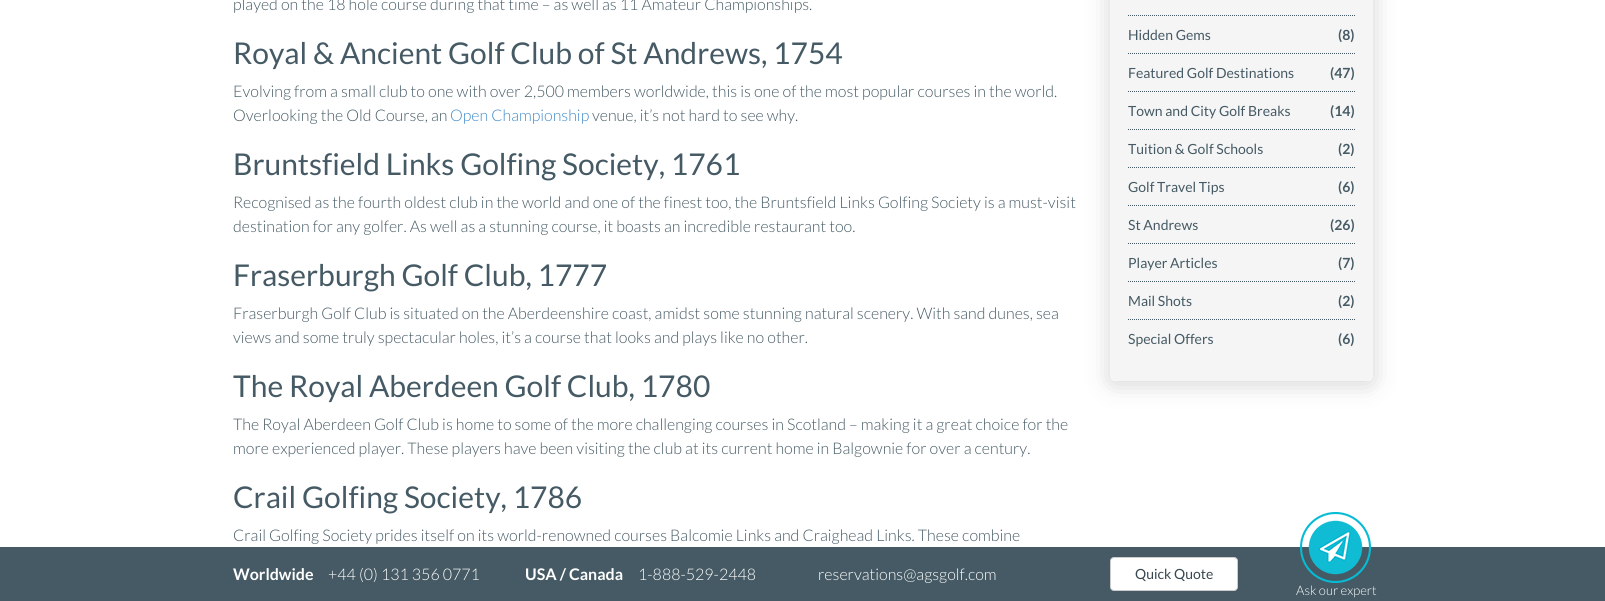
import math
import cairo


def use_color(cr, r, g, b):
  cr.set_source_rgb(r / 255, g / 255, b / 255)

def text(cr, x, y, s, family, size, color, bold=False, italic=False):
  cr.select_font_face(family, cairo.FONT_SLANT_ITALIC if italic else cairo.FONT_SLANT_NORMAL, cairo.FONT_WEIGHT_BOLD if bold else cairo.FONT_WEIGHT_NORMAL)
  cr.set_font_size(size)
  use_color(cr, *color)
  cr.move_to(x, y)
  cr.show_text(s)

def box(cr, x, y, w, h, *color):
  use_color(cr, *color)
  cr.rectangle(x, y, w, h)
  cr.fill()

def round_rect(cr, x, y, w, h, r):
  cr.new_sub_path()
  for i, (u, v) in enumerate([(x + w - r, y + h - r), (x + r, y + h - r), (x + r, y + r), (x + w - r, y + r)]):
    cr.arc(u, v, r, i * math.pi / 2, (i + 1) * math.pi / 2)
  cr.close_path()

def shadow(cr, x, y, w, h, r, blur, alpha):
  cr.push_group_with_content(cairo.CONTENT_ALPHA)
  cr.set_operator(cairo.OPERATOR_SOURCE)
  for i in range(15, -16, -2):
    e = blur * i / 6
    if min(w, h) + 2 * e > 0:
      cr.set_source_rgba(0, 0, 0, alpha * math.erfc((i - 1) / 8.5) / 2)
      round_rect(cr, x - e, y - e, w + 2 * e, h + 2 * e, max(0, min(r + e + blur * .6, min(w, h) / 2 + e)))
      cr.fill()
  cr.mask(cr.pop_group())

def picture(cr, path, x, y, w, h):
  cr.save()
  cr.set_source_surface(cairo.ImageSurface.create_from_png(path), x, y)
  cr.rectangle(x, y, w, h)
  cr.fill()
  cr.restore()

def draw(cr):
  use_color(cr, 255, 255, 255)
  cr.paint()
  use_color(cr, 1, 1, 1)
  shadow(cr, 1110, -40, 263, 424, 4, 12, 0.17)
  use_color(cr, 245, 245, 245)
  cr.new_path()
  cr.move_to(1110, -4)
  cr.line_to(1373, -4)
  cr.line_to(1373, 377)
  cr.curve_to(1373, 379, 1371, 381, 1369, 381)
  cr.line_to(1114, 381)
  cr.curve_to(1112, 381, 1110, 379, 1110, 377)
  cr.close_path()
  cr.fill()
  cr.new_path()
  cr.move_to(1128, 15.5)
  cr.line_to(1355, 15.5)
  use_color(cr, 69, 90, 100)
  cr.set_line_width(1)
  cr.set_dash([1, 1])
  cr.stroke()
  cr.new_path()
  cr.move_to(1128, 53.5)
  cr.line_to(1355, 53.5)
  cr.stroke()
  cr.new_path()
  cr.move_to(1128, 91.5)
  cr.line_to(1355, 91.5)
  cr.stroke()
  cr.new_path()
  cr.move_to(1128, 129.5)
  cr.line_to(1355, 129.5)
  cr.stroke()
  cr.new_path()
  cr.move_to(1128, 167.5)
  cr.line_to(1355, 167.5)
  cr.stroke()
  cr.new_path()
  cr.move_to(1128, 205.5)
  cr.line_to(1355, 205.5)
  cr.stroke()
  cr.new_path()
  cr.move_to(1128, 243.5)
  cr.line_to(1355, 243.5)
  cr.stroke()
  cr.new_path()
  cr.move_to(1128, 281.5)
  cr.line_to(1355, 281.5)
  cr.stroke()
  cr.new_path()
  cr.move_to(1128, 319.5)
  cr.line_to(1355, 319.5)
  cr.stroke()
  box(cr, 0, 547, 1605, 54, 69, 90, 100)
  use_color(cr, 255, 255, 255)
  round_rect(cr, 1110.5, 557.5, 127, 33, 3.5)
  cr.fill_preserve()
  use_color(cr, 204, 204, 204)
  cr.set_dash([])
  cr.stroke()
  picture(cr, "img_01.png", 1300, 512, 71, 71)
  text(cr, 233, 10, "played on the 18 hole course during that time – as well as 11 Amateur Championships.", "Lato Light", 16, (69, 90, 100))
  text(cr, 233, 64, "Royal & Ancient Golf Club of St Andrews, 1754", "Lato", 30, (69, 90, 100))
  text(cr, 233, 97, "Evolving from a small club to one with over 2,500 members worldwide, this is one of the most popular courses in the world.", "Lato Light", 16, (69, 90, 100))
  text(cr, 233, 121, "Overlooking the Old Course, an", "Lato Light", 16, (69, 90, 100))
  text(cr, 450, 121, "Open Championship", "Lato Light", 16, (66, 139, 202))
  text(cr, 592, 121, "venue, it’s not hard to see why.", "Lato Light", 16, (69, 90, 100))
  text(cr, 233, 175, "Bruntsfield Links Golfing Society, 1761", "Lato", 30, (69, 90, 100))
  text(cr, 233, 208, "Recognised as the fourth oldest club in the world and one of the finest too, the Bruntsfield Links Golfing Society is a must-visit", "Lato Light", 16, (69, 90, 100))
  text(cr, 233, 232, "destination for any golfer. As well as a stunning course, it boasts an incredible restaurant too.", "Lato Light", 16, (69, 90, 100))
  text(cr, 233, 286, "Fraserburgh Golf Club, 1777", "Lato", 30, (69, 90, 100))
  text(cr, 233, 319, "Fraserburgh Golf Club is situated on the Aberdeenshire coast, amidst some stunning natural scenery. With sand dunes, sea", "Lato Light", 16, (69, 90, 100))
  text(cr, 233, 343, "views and some truly spectacular holes, it’s a course that looks and plays like no other.", "Lato Light", 16, (69, 90, 100))
  text(cr, 233, 397, "The Royal Aberdeen Golf Club, 1780", "Lato", 30, (69, 90, 100))
  text(cr, 233, 430, "The Royal Aberdeen Golf Club is home to some of the more challenging courses in Scotland – making it a great choice for the", "Lato Light", 16, (69, 90, 100))
  text(cr, 233, 454, "more experienced player. These players have been visiting the club at its current home in Balgownie for over a century.", "Lato Light", 16, (69, 90, 100))
  text(cr, 233, 508, "Crail Golfing Society, 1786", "Lato", 30, (69, 90, 100))
  text(cr, 233, 541, "Crail Golfing Society prides itself on its world-renowned courses Balcomie Links and Craighead Links. These combine", "Lato Light", 16, (69, 90, 100))
  text(cr, 1128, 40, "Hidden Gems", "Lato", 14, (69, 90, 100))
  text(cr, 1338, 40, "(8)", "Lato", 14, (69, 90, 100), bold=True)
  text(cr, 1128, 78, "Featured Golf Destinations", "Lato", 14, (69, 90, 100))
  text(cr, 1330, 78, "(47)", "Lato", 14, (69, 90, 100), bold=True)
  text(cr, 1128, 116, "Town and City Golf Breaks", "Lato", 14, (69, 90, 100))
  text(cr, 1330, 116, "(14)", "Lato", 14, (69, 90, 100), bold=True)
  text(cr, 1128, 154, "Tuition & Golf Schools", "Lato", 14, (69, 90, 100))
  text(cr, 1338, 154, "(2)", "Lato", 14, (69, 90, 100), bold=True)
  text(cr, 1128, 192, "Golf Travel Tips", "Lato", 14, (69, 90, 100))
  text(cr, 1338, 192, "(6)", "Lato", 14, (69, 90, 100), bold=True)
  text(cr, 1128, 230, "St Andrews", "Lato", 14, (69, 90, 100))
  text(cr, 1330, 230, "(26)", "Lato", 14, (69, 90, 100), bold=True)
  text(cr, 1128, 268, "Player Articles", "Lato", 14, (69, 90, 100))
  text(cr, 1338, 268, "(7)", "Lato", 14, (69, 90, 100), bold=True)
  text(cr, 1128, 306, "Mail Shots", "Lato", 14, (69, 90, 100))
  text(cr, 1338, 306, "(2)", "Lato", 14, (69, 90, 100), bold=True)
  text(cr, 1128, 344, "Special Offers", "Lato", 14, (69, 90, 100))
  text(cr, 1338, 344, "(6)", "Lato", 14, (69, 90, 100), bold=True)
  text(cr, 233, 580, "Worldwide", "Lato", 16, (255, 255, 255), bold=True)
  text(cr, 328, 580, "+44 (0) 131 356 0771", "Lato Light", 16, (255, 255, 255))
  text(cr, 525, 580, "USA / Canada", "Lato", 16, (255, 255, 255), bold=True)
  text(cr, 638, 580, "1-888-529-2448", "Lato Light", 16, (255, 255, 255))
  text(cr, 818, 580, "reservations@agsgolf.com", "Lato Light", 16, (255, 255, 255))
  text(cr, 1135, 579, "Quick Quote", "Lato", 14, (55, 71, 79))
  text(cr, 1296, 595, "Ask our expert", "Lato Light", 13, (255, 255, 255))


surface = cairo.ImageSurface(cairo.FORMAT_RGB24, 1605, 601)
cr = cairo.Context(surface)
options = cairo.FontOptions()
options.set_hint_metrics(cairo.HINT_METRICS_OFF)
options.set_hint_style(cairo.HINT_STYLE_NONE)
cr.set_font_options(options)
cr.set_miter_limit(4)
draw(cr)
surface.write_to_png("out.png")
